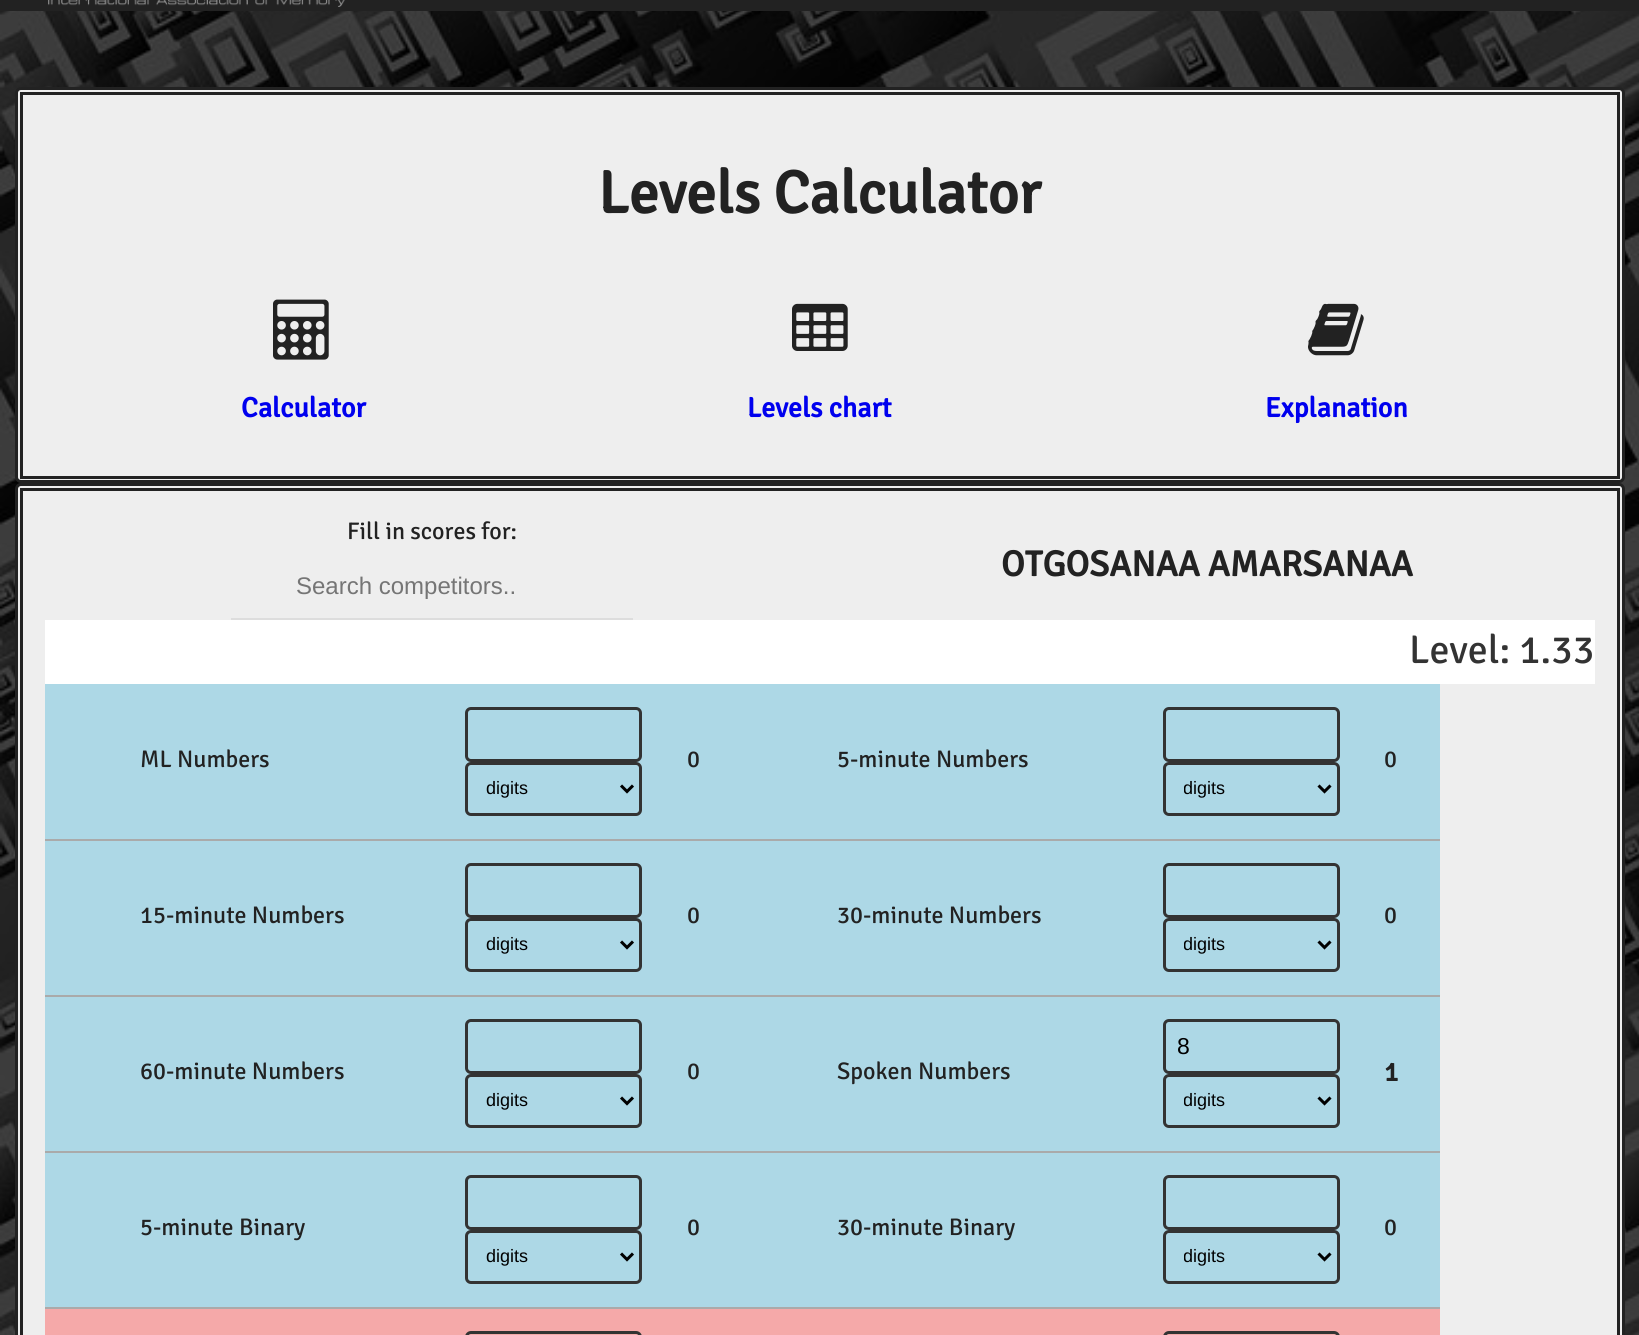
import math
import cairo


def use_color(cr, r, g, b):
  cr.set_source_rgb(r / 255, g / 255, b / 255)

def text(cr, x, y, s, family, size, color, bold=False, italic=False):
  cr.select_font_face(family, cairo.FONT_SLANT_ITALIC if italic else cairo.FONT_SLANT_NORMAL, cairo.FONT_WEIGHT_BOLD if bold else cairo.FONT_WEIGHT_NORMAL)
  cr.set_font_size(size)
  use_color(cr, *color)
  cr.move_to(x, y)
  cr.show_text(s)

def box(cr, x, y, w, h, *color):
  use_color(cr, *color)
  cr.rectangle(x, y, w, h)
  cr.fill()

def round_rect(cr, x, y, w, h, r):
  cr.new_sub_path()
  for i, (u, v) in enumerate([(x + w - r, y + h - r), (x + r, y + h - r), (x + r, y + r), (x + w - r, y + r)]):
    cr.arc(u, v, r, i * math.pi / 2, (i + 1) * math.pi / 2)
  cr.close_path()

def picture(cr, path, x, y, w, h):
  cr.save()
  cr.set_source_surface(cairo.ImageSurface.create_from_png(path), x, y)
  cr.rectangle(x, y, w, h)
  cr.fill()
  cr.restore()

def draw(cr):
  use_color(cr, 255, 255, 255)
  cr.paint()
  picture(cr, "img_01.png", 0, 11, 1639, 1324)
  box(cr, 0, 0, 1639, 11, 34, 34, 34)
  picture(cr, "img_02.png", 48, 0, 297, 7)
  use_color(cr, 238, 238, 238)
  round_rect(cr, 16.5, 88.5, 1607, 393, 4.5)
  cr.fill_preserve()
  use_color(cr, 34, 34, 34)
  cr.set_line_width(3)
  cr.stroke()
  cr.rectangle(21.5, 93.5, 1597, 384)
  cr.stroke()
  picture(cr, "img_03.png", 273, 299, 56, 61)
  picture(cr, "img_04.png", 792, 303, 56, 48)
  picture(cr, "img_05.png", 1308, 303, 56, 53)
  use_color(cr, 238, 238, 238)
  round_rect(cr, 16.5, 484.5, 1607, 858, 4.5)
  cr.fill_preserve()
  use_color(cr, 34, 34, 34)
  cr.stroke()
  cr.rectangle(21.5, 489.5, 1597, 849)
  cr.stroke()
  box(cr, 231, 618, 402, 2, 221, 221, 221)
  box(cr, 45, 620, 1550, 64, 255, 255, 255)
  box(cr, 45, 684, 1395, 155, 173, 216, 230)
  box(cr, 45, 839, 1395, 2, 170, 170, 170)
  round_rect(cr, 466.5, 708.5, 174, 52, 4.5)
  use_color(cr, 51, 51, 51)
  cr.stroke()
  round_rect(cr, 466.5, 763.5, 174, 51, 4.5)
  cr.stroke()
  cr.new_path()
  cr.move_to(621, 785.5)
  cr.line_to(627, 791.5)
  cr.line_to(633, 785.5)
  use_color(cr, 0, 0, 0)
  cr.stroke()
  round_rect(cr, 1164.5, 708.5, 174, 52, 4.5)
  use_color(cr, 51, 51, 51)
  cr.stroke()
  round_rect(cr, 1164.5, 763.5, 174, 51, 4.5)
  cr.stroke()
  cr.new_path()
  cr.move_to(1318.5, 785.5)
  cr.line_to(1324.5, 791.5)
  cr.line_to(1330.5, 785.5)
  use_color(cr, 0, 0, 0)
  cr.stroke()
  box(cr, 45, 841, 1395, 154, 173, 216, 230)
  box(cr, 45, 995, 1395, 2, 170, 170, 170)
  round_rect(cr, 466.5, 864.5, 174, 52, 4.5)
  use_color(cr, 51, 51, 51)
  cr.stroke()
  round_rect(cr, 466.5, 919.5, 174, 51, 4.5)
  cr.stroke()
  cr.new_path()
  cr.move_to(621, 941.5)
  cr.line_to(627, 947.5)
  cr.line_to(633, 941.5)
  use_color(cr, 0, 0, 0)
  cr.stroke()
  round_rect(cr, 1164.5, 864.5, 174, 52, 4.5)
  use_color(cr, 51, 51, 51)
  cr.stroke()
  round_rect(cr, 1164.5, 919.5, 174, 51, 4.5)
  cr.stroke()
  cr.new_path()
  cr.move_to(1318.5, 941.5)
  cr.line_to(1324.5, 947.5)
  cr.line_to(1330.5, 941.5)
  use_color(cr, 0, 0, 0)
  cr.stroke()
  box(cr, 45, 997, 1395, 154, 173, 216, 230)
  round_rect(cr, 1164.5, 1020.5, 174, 52, 4.5)
  use_color(cr, 51, 51, 51)
  cr.stroke()
  round_rect(cr, 1164.5, 1075.5, 174, 51, 4.5)
  cr.stroke()
  cr.new_path()
  cr.move_to(1318.5, 1097.5)
  cr.line_to(1324.5, 1103.5)
  cr.line_to(1330.5, 1097.5)
  use_color(cr, 0, 0, 0)
  cr.stroke()
  box(cr, 45, 1151, 1395, 2, 170, 170, 170)
  round_rect(cr, 466.5, 1020.5, 174, 52, 4.5)
  use_color(cr, 51, 51, 51)
  cr.stroke()
  round_rect(cr, 466.5, 1075.5, 174, 51, 4.5)
  cr.stroke()
  cr.new_path()
  cr.move_to(621, 1097.5)
  cr.line_to(627, 1103.5)
  cr.line_to(633, 1097.5)
  use_color(cr, 0, 0, 0)
  cr.stroke()
  box(cr, 45, 1153, 1395, 154, 173, 216, 230)
  box(cr, 45, 1307, 1395, 2, 170, 170, 170)
  round_rect(cr, 466.5, 1176.5, 174, 52, 4.5)
  use_color(cr, 51, 51, 51)
  cr.stroke()
  round_rect(cr, 466.5, 1231.5, 174, 51, 4.5)
  cr.stroke()
  cr.new_path()
  cr.move_to(621, 1253.5)
  cr.line_to(627, 1259.5)
  cr.line_to(633, 1253.5)
  use_color(cr, 0, 0, 0)
  cr.stroke()
  round_rect(cr, 1164.5, 1176.5, 174, 52, 4.5)
  use_color(cr, 51, 51, 51)
  cr.stroke()
  round_rect(cr, 1164.5, 1231.5, 174, 51, 4.5)
  cr.stroke()
  cr.new_path()
  cr.move_to(1318.5, 1253.5)
  cr.line_to(1324.5, 1259.5)
  cr.line_to(1330.5, 1253.5)
  use_color(cr, 0, 0, 0)
  cr.stroke()
  box(cr, 45, 1309, 1395, 26, 245, 169, 169)
  round_rect(cr, 466.5, 1332.5, 174, 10, 4.5)
  use_color(cr, 51, 51, 51)
  cr.stroke()
  round_rect(cr, 1164.5, 1332.5, 174, 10, 4.5)
  cr.stroke()
  text(cr, 598, 213, "Levels Calculator", "Signika", 60, (34, 34, 34), bold=True)
  text(cr, 241, 417, "Calculator", "Signika", 28, (0, 0, 238), bold=True)
  text(cr, 747, 417, "Levels chart", "Signika", 28, (0, 0, 238), bold=True)
  text(cr, 1265, 417, "Explanation", "Signika", 28, (0, 0, 238), bold=True)
  text(cr, 347, 539, "Fill in scores for:", "Signika Light", 24, (34, 34, 34))
  text(cr, 296, 594, "Search competitors..", "Liberation Sans", 24, (117, 117, 117))
  text(cr, 1001, 576, "OTGOSANAA AMARSANAA", "Signika", 36, (34, 34, 34), bold=True)
  text(cr, 1409, 663, "Level: 1.33", "Signika Light", 40, (51, 51, 51))
  text(cr, 140, 767, "ML Numbers", "Signika Light", 24, (34, 34, 34))
  text(cr, 687, 767, "0", "Signika Light", 24, (34, 34, 34))
  text(cr, 837, 767, "5-minute Numbers", "Signika Light", 24, (34, 34, 34))
  text(cr, 1384, 767, "0", "Signika Light", 24, (34, 34, 34))
  text(cr, 486, 794, "digits", "Liberation Sans", 18, (0, 0, 0))
  cr.save()
  cr.rectangle(1184, 777, 117, 24)
  cr.clip()
  text(cr, 1183, 794, "digits", "Liberation Sans", 18, (0, 0, 0))
  cr.restore()
  text(cr, 140, 923, "15-minute Numbers", "Signika Light", 24, (34, 34, 34))
  text(cr, 687, 923, "0", "Signika Light", 24, (34, 34, 34))
  text(cr, 837, 923, "30-minute Numbers", "Signika Light", 24, (34, 34, 34))
  text(cr, 1384, 923, "0", "Signika Light", 24, (34, 34, 34))
  text(cr, 486, 950, "digits", "Liberation Sans", 18, (0, 0, 0))
  cr.save()
  cr.rectangle(1184, 933, 117, 24)
  cr.clip()
  text(cr, 1183, 950, "digits", "Liberation Sans", 18, (0, 0, 0))
  cr.restore()
  text(cr, 140, 1079, "60-minute Numbers", "Signika Light", 24, (34, 34, 34))
  text(cr, 687, 1079, "0", "Signika Light", 24, (34, 34, 34))
  text(cr, 837, 1079, "Spoken Numbers", "Signika Light", 24, (34, 34, 34))
  text(cr, 1177, 1054, "8", "Liberation Sans", 23, (0, 0, 0))
  cr.save()
  cr.rectangle(1184, 1089, 117, 24)
  cr.clip()
  text(cr, 1183, 1106, "digits", "Liberation Sans", 18, (0, 0, 0))
  cr.restore()
  text(cr, 1384, 1081, "1", "Signika", 27, (34, 34, 34), bold=True)
  text(cr, 486, 1106, "digits", "Liberation Sans", 18, (0, 0, 0))
  text(cr, 140, 1235, "5-minute Binary", "Signika Light", 24, (34, 34, 34))
  text(cr, 687, 1235, "0", "Signika Light", 24, (34, 34, 34))
  text(cr, 837, 1235, "30-minute Binary", "Signika Light", 24, (34, 34, 34))
  text(cr, 1384, 1235, "0", "Signika Light", 24, (34, 34, 34))
  text(cr, 486, 1262, "digits", "Liberation Sans", 18, (0, 0, 0))
  cr.save()
  cr.rectangle(1184, 1245, 117, 24)
  cr.clip()
  text(cr, 1183, 1262, "digits", "Liberation Sans", 18, (0, 0, 0))
  cr.restore()


surface = cairo.ImageSurface(cairo.FORMAT_RGB24, 1639, 1335)
cr = cairo.Context(surface)
options = cairo.FontOptions()
options.set_hint_metrics(cairo.HINT_METRICS_OFF)
options.set_hint_style(cairo.HINT_STYLE_NONE)
cr.set_font_options(options)
cr.set_miter_limit(4)
draw(cr)
surface.write_to_png("out.png")
